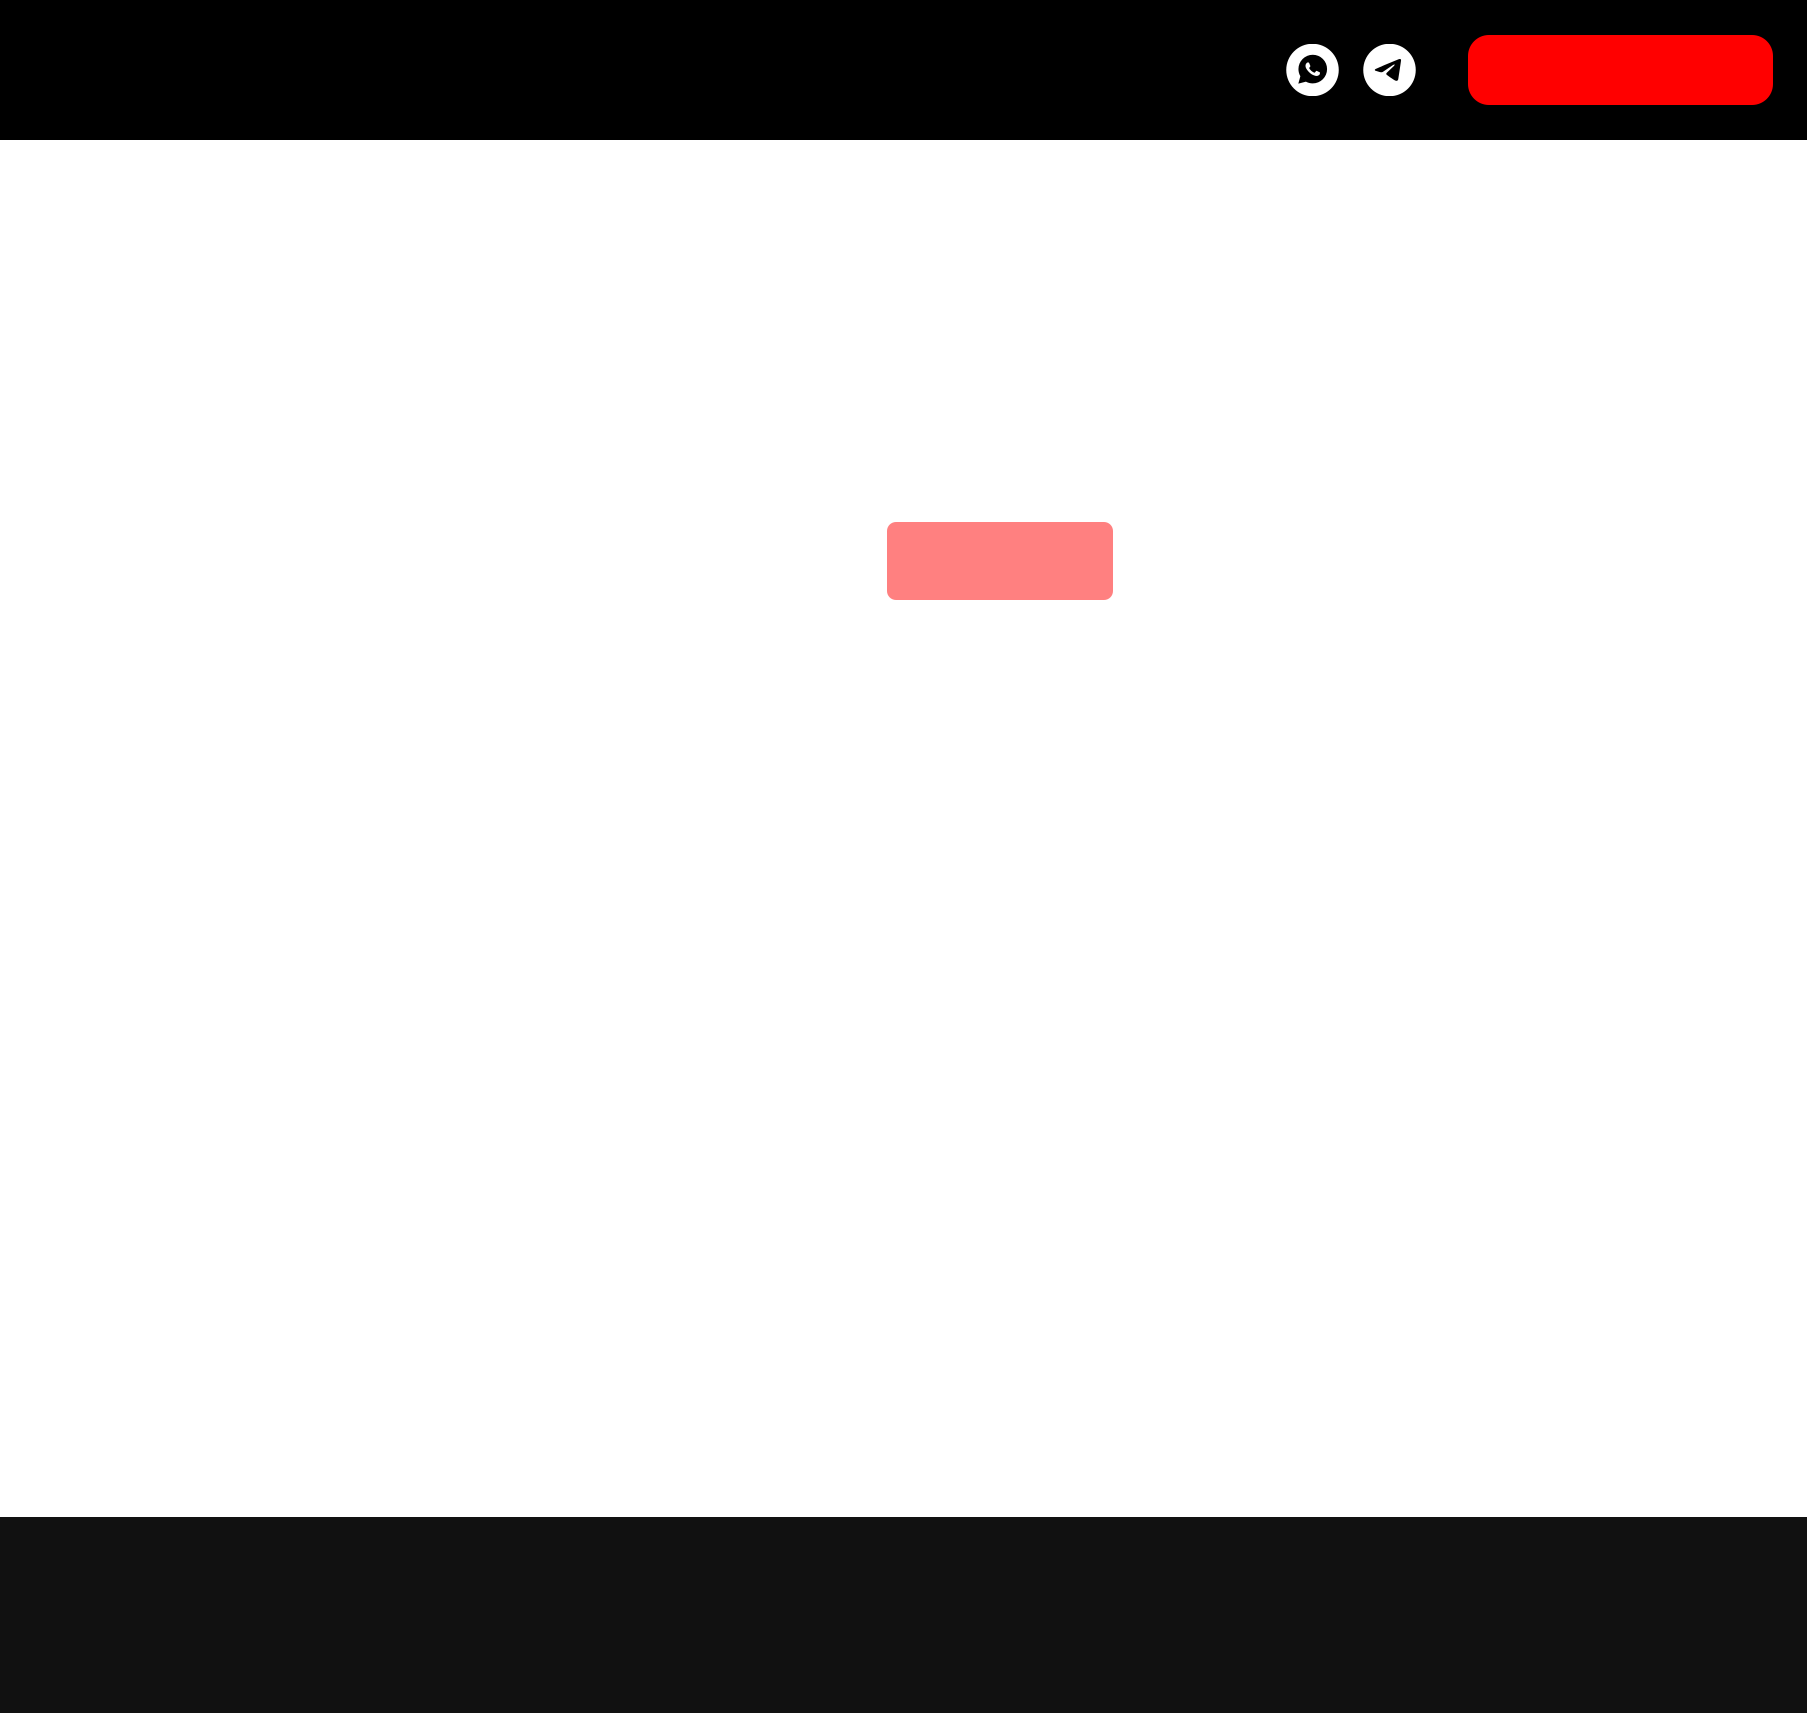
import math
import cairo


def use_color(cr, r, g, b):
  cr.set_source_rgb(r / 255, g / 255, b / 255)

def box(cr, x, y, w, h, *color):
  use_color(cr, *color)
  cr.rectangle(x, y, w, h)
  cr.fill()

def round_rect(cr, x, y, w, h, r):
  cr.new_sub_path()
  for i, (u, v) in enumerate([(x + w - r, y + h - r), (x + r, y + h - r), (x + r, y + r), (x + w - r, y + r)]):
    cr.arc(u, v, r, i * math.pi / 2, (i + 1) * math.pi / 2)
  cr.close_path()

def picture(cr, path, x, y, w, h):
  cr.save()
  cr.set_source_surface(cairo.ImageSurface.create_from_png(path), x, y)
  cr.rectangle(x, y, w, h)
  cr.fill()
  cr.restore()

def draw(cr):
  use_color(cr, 255, 255, 255)
  cr.paint()
  box(cr, 0, 0, 1807, 140, 0, 0, 0)
  picture(cr, "img_01.png", 1286, 44, 53, 52)
  picture(cr, "img_02.png", 1363, 44, 53, 52)
  use_color(cr, 255, 0, 0)
  round_rect(cr, 1468, 35, 305, 70, 21)
  cr.fill()
  use_color(cr, 255, 128, 128)
  round_rect(cr, 887, 522, 226, 78, 9)
  cr.fill()
  box(cr, 0, 1517, 1807, 196, 17, 17, 17)


surface = cairo.ImageSurface(cairo.FORMAT_RGB24, 1807, 1713)
cr = cairo.Context(surface)
options = cairo.FontOptions()
options.set_hint_metrics(cairo.HINT_METRICS_OFF)
options.set_hint_style(cairo.HINT_STYLE_NONE)
cr.set_font_options(options)
cr.set_miter_limit(4)
draw(cr)
surface.write_to_png("out.png")
